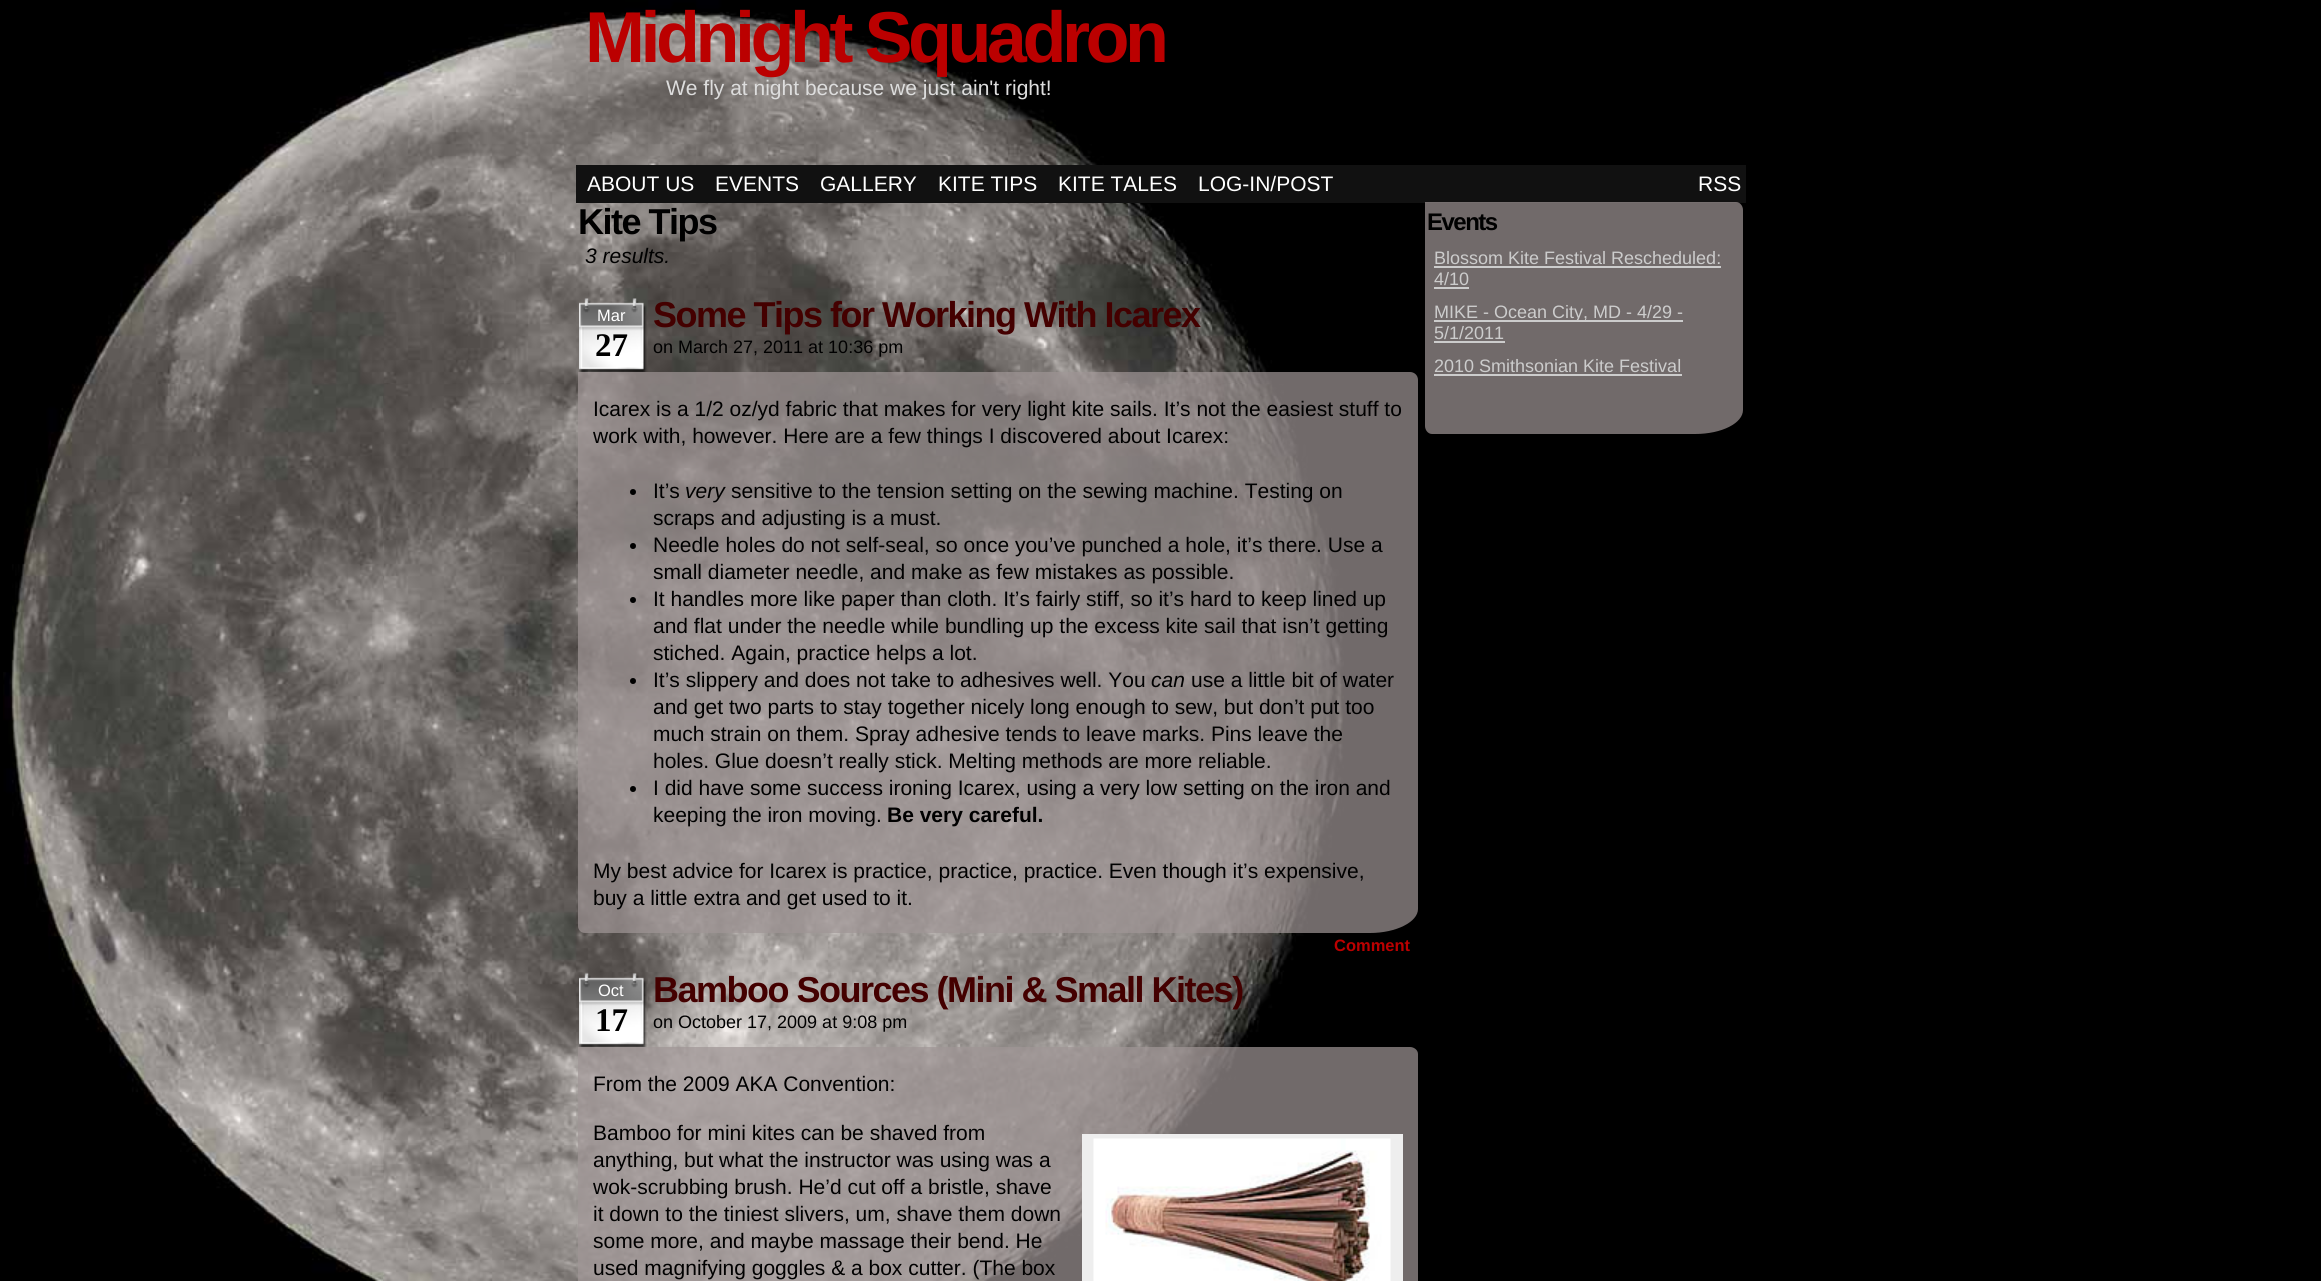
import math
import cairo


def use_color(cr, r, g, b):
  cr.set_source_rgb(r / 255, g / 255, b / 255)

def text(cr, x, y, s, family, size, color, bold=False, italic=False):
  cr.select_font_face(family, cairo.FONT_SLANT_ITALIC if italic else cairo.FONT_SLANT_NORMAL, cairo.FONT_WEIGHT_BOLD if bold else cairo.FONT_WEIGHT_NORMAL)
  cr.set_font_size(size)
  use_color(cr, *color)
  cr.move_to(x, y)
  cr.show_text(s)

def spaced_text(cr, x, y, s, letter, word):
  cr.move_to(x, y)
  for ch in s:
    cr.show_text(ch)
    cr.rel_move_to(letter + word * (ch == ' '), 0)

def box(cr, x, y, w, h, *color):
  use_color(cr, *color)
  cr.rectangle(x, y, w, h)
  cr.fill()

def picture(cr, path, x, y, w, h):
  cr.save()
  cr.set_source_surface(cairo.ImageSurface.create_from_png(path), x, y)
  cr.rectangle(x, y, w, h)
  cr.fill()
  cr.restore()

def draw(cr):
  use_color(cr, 0, 0, 0)
  cr.paint()
  picture(cr, "img_01.png", 3, 0, 1341, 1281)
  box(cr, 576, 165, 1170, 38, 17, 17, 17)
  picture(cr, "img_02.png", 579, 298, 68, 74)
  cr.set_source_rgba(0.627, 0.588, 0.588, 0.71)
  cr.new_path()
  cr.move_to(578, 372)
  cr.line_to(1410, 372)
  cr.curve_to(1414, 372, 1418, 375, 1418, 380)
  cr.line_to(1418, 909)
  cr.curve_to(1418, 922, 1396, 933, 1370, 933)
  cr.line_to(585, 933)
  cr.curve_to(581, 933, 578, 930, 578, 926)
  cr.close_path()
  cr.fill()
  use_color(cr, 0, 0, 0)
  cr.arc(633, 492, 3, 0, 2 * math.pi)
  cr.fill()
  cr.arc(633, 546, 3, 0, 2 * math.pi)
  cr.fill()
  cr.arc(633, 600, 3, 0, 2 * math.pi)
  cr.fill()
  cr.arc(633, 681, 3, 0, 2 * math.pi)
  cr.fill()
  cr.arc(633, 789, 3, 0, 2 * math.pi)
  cr.fill()
  picture(cr, "img_03.png", 579, 973, 68, 74)
  cr.set_source_rgba(0.627, 0.588, 0.588, 0.71)
  cr.new_path()
  cr.move_to(578, 1047)
  cr.line_to(1410, 1047)
  cr.curve_to(1414, 1047, 1418, 1050, 1418, 1054)
  cr.line_to(1418, 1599)
  cr.curve_to(1418, 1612, 1396, 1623, 1370, 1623)
  cr.line_to(585, 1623)
  cr.curve_to(581, 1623, 578, 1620, 578, 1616)
  cr.close_path()
  cr.fill()
  box(cr, 1082, 1134, 321, 147, 238, 238, 238)
  picture(cr, "img_04.png", 1093, 1138, 298, 143)
  cr.set_source_rgba(0.627, 0.588, 0.588, 0.71)
  cr.new_path()
  cr.move_to(1425, 202)
  cr.line_to(1736, 202)
  cr.curve_to(1740, 202, 1743, 206, 1743, 210)
  cr.line_to(1743, 410)
  cr.curve_to(1743, 423, 1722, 434, 1695, 434)
  cr.line_to(1432, 434)
  cr.curve_to(1428, 434, 1425, 430, 1425, 426)
  cr.close_path()
  cr.fill()
  box(cr, 1434, 266, 287, 2, 204, 204, 204)
  box(cr, 1434, 287, 35, 2, 204, 204, 204)
  box(cr, 1434, 320, 249, 2, 204, 204, 204)
  box(cr, 1434, 341, 71, 2, 204, 204, 204)
  box(cr, 1434, 374, 248, 2, 204, 204, 204)
  cr.select_font_face("Liberation Sans", cairo.FONT_SLANT_NORMAL, cairo.FONT_WEIGHT_BOLD)
  cr.set_font_size(72)
  use_color(cr, 187, 0, 0)
  spaced_text(cr, 585, 62, "Midnight Squadron", -4.5, 0)
  text(cr, 666, 95, "We fly at night because we just ain't right!", "Liberation Sans", 21, (221, 221, 221))
  text(cr, 587, 191, "ABOUT US", "Liberation Sans", 21, (255, 255, 255))
  text(cr, 715, 191, "EVENTS", "Liberation Sans", 21, (255, 255, 255))
  text(cr, 820, 191, "GALLERY", "Liberation Sans", 21, (255, 255, 255))
  text(cr, 938, 191, "KITE TIPS", "Liberation Sans", 21, (255, 255, 255))
  text(cr, 1058, 191, "KITE TALES", "Liberation Sans", 21, (255, 255, 255))
  text(cr, 1198, 191, "LOG-IN/POST", "Liberation Sans", 21, (255, 255, 255))
  text(cr, 1698, 191, "RSS", "Liberation Sans", 21, (255, 255, 255))
  cr.select_font_face("Liberation Sans", cairo.FONT_SLANT_NORMAL, cairo.FONT_WEIGHT_BOLD)
  cr.set_font_size(36)
  use_color(cr, 0, 0, 0)
  spaced_text(cr, 578, 234, "Kite Tips", -1.5, 0)
  text(cr, 585, 263, "3 results.", "Liberation Sans", 21, (0, 0, 0), italic=True)
  text(cr, 597, 321, "Mar", "Liberation Sans", 16.5, (255, 255, 255))
  text(cr, 595, 356, "27", "Liberation Serif", 33, (0, 0, 0), bold=True)
  cr.select_font_face("Liberation Sans", cairo.FONT_SLANT_NORMAL, cairo.FONT_WEIGHT_BOLD)
  cr.set_font_size(36)
  use_color(cr, 68, 0, 0)
  spaced_text(cr, 653, 327, "Some Tips for Working With Icarex", -1.5, 0)
  text(cr, 653, 353, "on March 27, 2011 at 10:36 pm", "Liberation Sans", 18, (0, 0, 0))
  text(cr, 593, 416, "Icarex is a 1/2 oz/yd fabric that makes for very light kite sails. It’s not the easiest stuff to", "Liberation Sans", 21, (0, 0, 0))
  text(cr, 593, 443, "work with, however. Here are a few things I discovered about Icarex:", "Liberation Sans", 21, (0, 0, 0))
  text(cr, 653, 498, "It’s", "Liberation Sans", 21, (0, 0, 0))
  text(cr, 685, 498, "very", "Liberation Sans", 21, (0, 0, 0), italic=True)
  text(cr, 731, 498, "sensitive to the tension setting on the sewing machine. Testing on", "Liberation Sans", 21, (0, 0, 0))
  text(cr, 653, 525, "scraps and adjusting is a must.", "Liberation Sans", 21, (0, 0, 0))
  text(cr, 653, 552, "Needle holes do not self-seal, so once you’ve punched a hole, it’s there. Use a", "Liberation Sans", 21, (0, 0, 0))
  text(cr, 653, 579, "small diameter needle, and make as few mistakes as possible.", "Liberation Sans", 21, (0, 0, 0))
  text(cr, 653, 606, "It handles more like paper than cloth. It’s fairly stiff, so it’s hard to keep lined up", "Liberation Sans", 21, (0, 0, 0))
  text(cr, 653, 633, "and flat under the needle while bundling up the excess kite sail that isn’t getting", "Liberation Sans", 21, (0, 0, 0))
  text(cr, 653, 660, "stiched. Again, practice helps a lot.", "Liberation Sans", 21, (0, 0, 0))
  text(cr, 653, 687, "It’s slippery and does not take to adhesives well. You", "Liberation Sans", 21, (0, 0, 0))
  text(cr, 1151, 687, "can", "Liberation Sans", 21, (0, 0, 0), italic=True)
  text(cr, 1191, 687, "use a little bit of water", "Liberation Sans", 21, (0, 0, 0))
  text(cr, 653, 714, "and get two parts to stay together nicely long enough to sew, but don’t put too", "Liberation Sans", 21, (0, 0, 0))
  text(cr, 653, 741, "much strain on them. Spray adhesive tends to leave marks. Pins leave the", "Liberation Sans", 21, (0, 0, 0))
  text(cr, 653, 768, "holes. Glue doesn’t really stick. Melting methods are more reliable.", "Liberation Sans", 21, (0, 0, 0))
  text(cr, 653, 795, "I did have some success ironing Icarex, using a very low setting on the iron and", "Liberation Sans", 21, (0, 0, 0))
  text(cr, 653, 822, "keeping the iron moving.", "Liberation Sans", 21, (0, 0, 0))
  text(cr, 887, 822, "Be very careful.", "Liberation Sans", 21, (0, 0, 0), bold=True)
  text(cr, 593, 878, "My best advice for Icarex is practice, practice, practice. Even though it’s expensive,", "Liberation Sans", 21, (0, 0, 0))
  text(cr, 593, 905, "buy a little extra and get used to it.", "Liberation Sans", 21, (0, 0, 0))
  text(cr, 1334, 951, "Comment", "Liberation Sans", 16.5, (187, 0, 0), bold=True)
  text(cr, 598, 996, "Oct", "Liberation Sans", 16.5, (255, 255, 255))
  text(cr, 595, 1031, "17", "Liberation Serif", 33, (0, 0, 0), bold=True)
  cr.select_font_face("Liberation Sans", cairo.FONT_SLANT_NORMAL, cairo.FONT_WEIGHT_BOLD)
  cr.set_font_size(36)
  use_color(cr, 68, 0, 0)
  spaced_text(cr, 653, 1002, "Bamboo Sources (Mini & Small Kites)", -1.5, 0)
  text(cr, 653, 1028, "on October 17, 2009 at 9:08 pm", "Liberation Sans", 18, (0, 0, 0))
  text(cr, 593, 1091, "From the 2009 AKA Convention:", "Liberation Sans", 21, (0, 0, 0))
  text(cr, 593, 1140, "Bamboo for mini kites can be shaved from", "Liberation Sans", 21, (0, 0, 0))
  text(cr, 593, 1167, "anything, but what the instructor was using was a", "Liberation Sans", 21, (0, 0, 0))
  text(cr, 593, 1194, "wok-scrubbing brush. He’d cut off a bristle, shave", "Liberation Sans", 21, (0, 0, 0))
  text(cr, 593, 1221, "it down to the tiniest slivers, um, shave them down", "Liberation Sans", 21, (0, 0, 0))
  text(cr, 593, 1248, "some more, and maybe massage their bend. He", "Liberation Sans", 21, (0, 0, 0))
  text(cr, 593, 1275, "used magnifying goggles & a box cutter. (The box", "Liberation Sans", 21, (0, 0, 0))
  cr.select_font_face("Liberation Sans", cairo.FONT_SLANT_NORMAL, cairo.FONT_WEIGHT_BOLD)
  cr.set_font_size(24)
  spaced_text(cr, 1427, 230, "Events", -1.5, 0)
  text(cr, 1434, 264, "Blossom Kite Festival Rescheduled:", "Liberation Sans", 18, (204, 204, 204))
  text(cr, 1434, 285, "4/10", "Liberation Sans", 18, (204, 204, 204))
  text(cr, 1434, 318, "MIKE - Ocean City, MD - 4/29 -", "Liberation Sans", 18, (204, 204, 204))
  text(cr, 1434, 339, "5/1/2011", "Liberation Sans", 18, (204, 204, 204))
  text(cr, 1434, 372, "2010 Smithsonian Kite Festival", "Liberation Sans", 18, (204, 204, 204))


surface = cairo.ImageSurface(cairo.FORMAT_RGB24, 2321, 1281)
cr = cairo.Context(surface)
options = cairo.FontOptions()
options.set_hint_metrics(cairo.HINT_METRICS_OFF)
options.set_hint_style(cairo.HINT_STYLE_NONE)
cr.set_font_options(options)
cr.set_miter_limit(4)
draw(cr)
surface.write_to_png("out.png")
